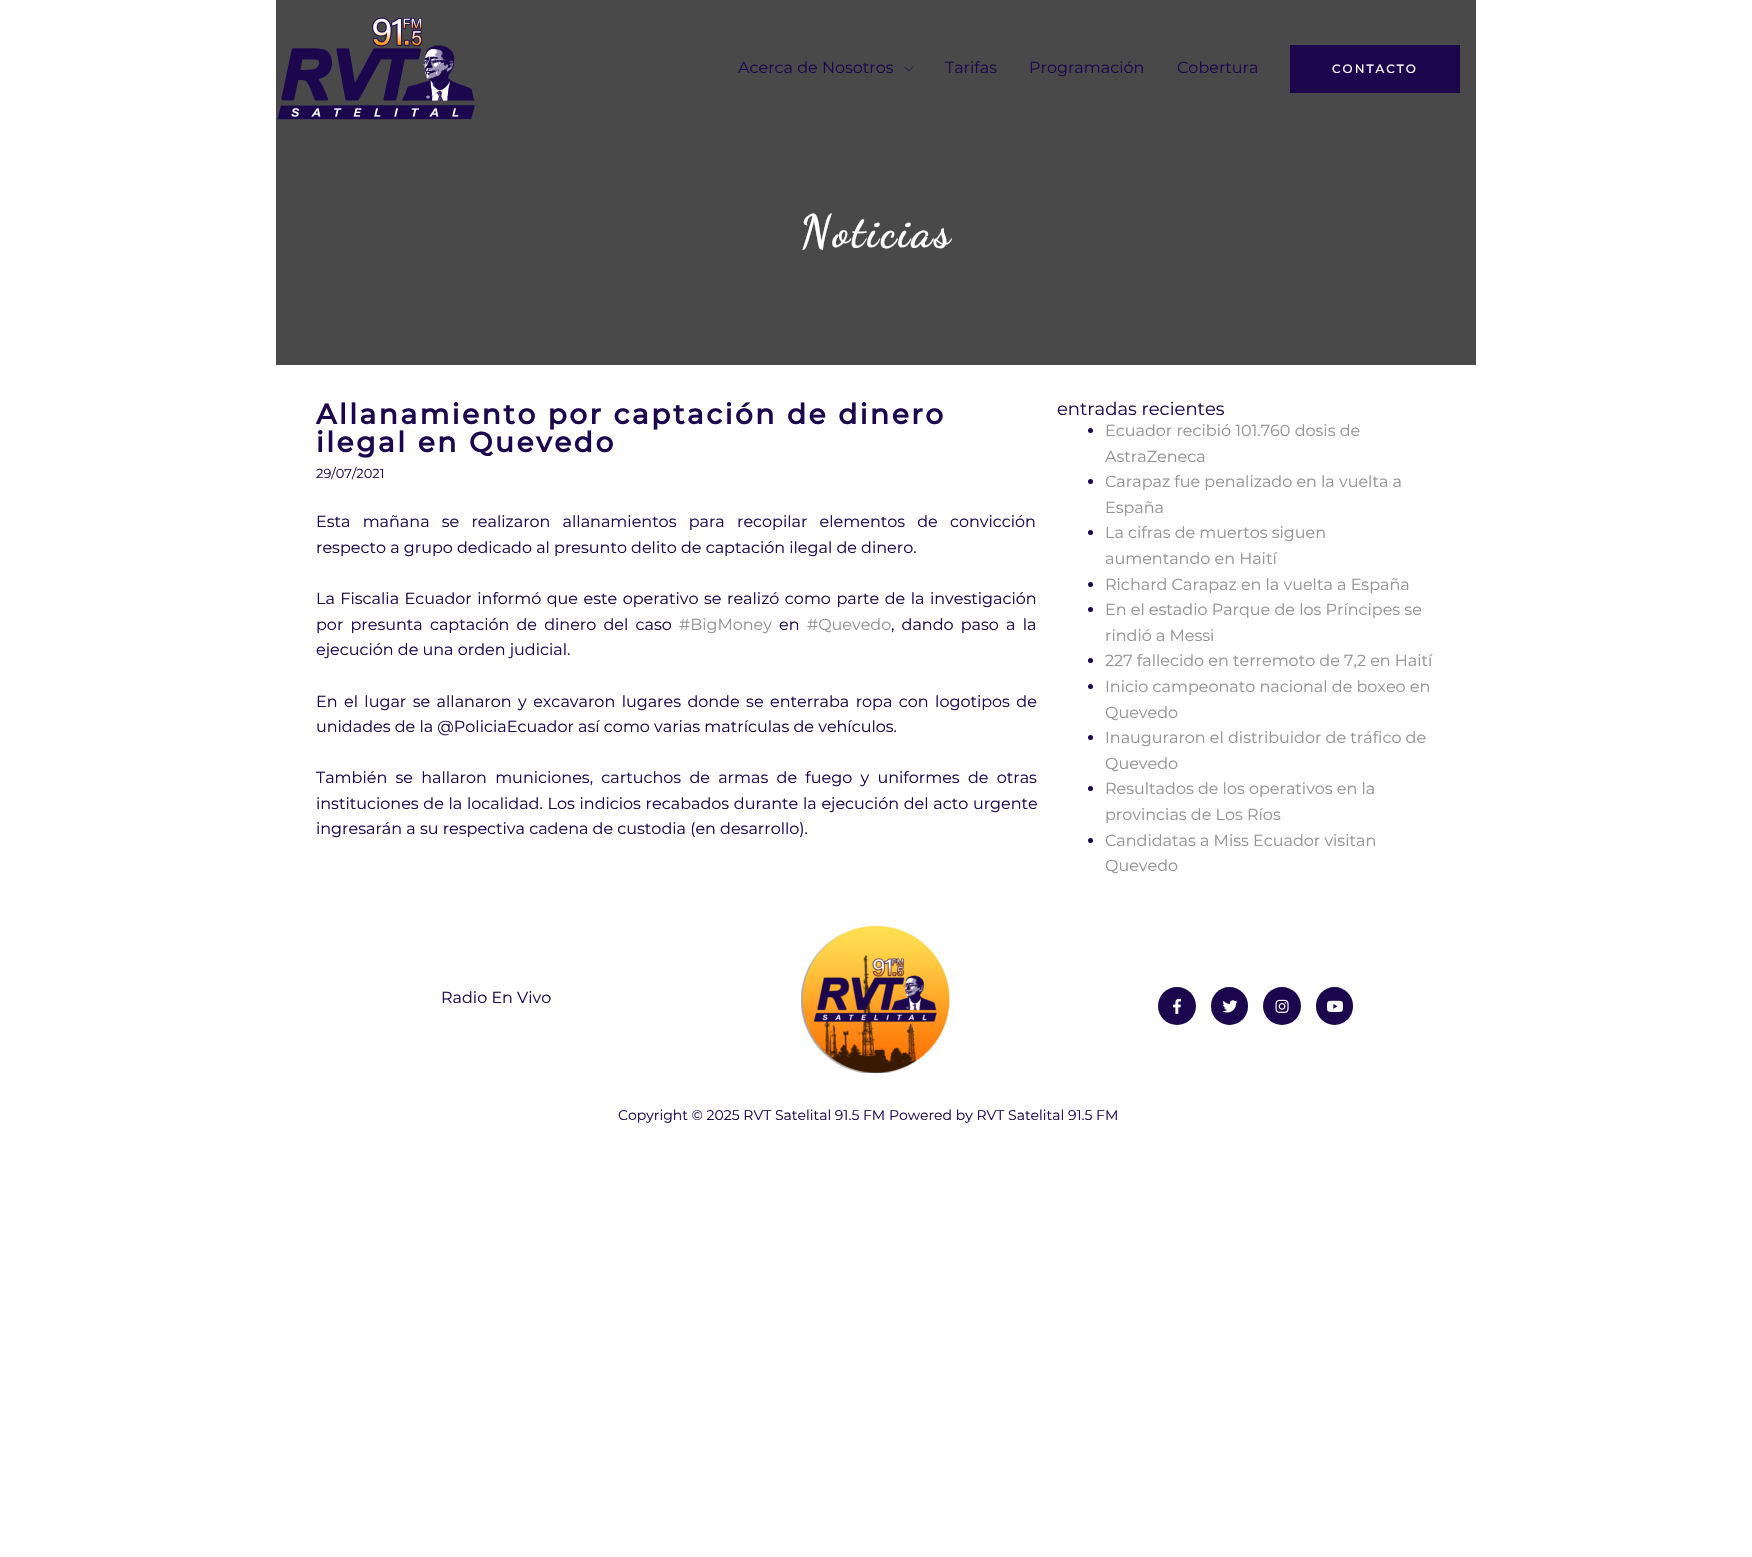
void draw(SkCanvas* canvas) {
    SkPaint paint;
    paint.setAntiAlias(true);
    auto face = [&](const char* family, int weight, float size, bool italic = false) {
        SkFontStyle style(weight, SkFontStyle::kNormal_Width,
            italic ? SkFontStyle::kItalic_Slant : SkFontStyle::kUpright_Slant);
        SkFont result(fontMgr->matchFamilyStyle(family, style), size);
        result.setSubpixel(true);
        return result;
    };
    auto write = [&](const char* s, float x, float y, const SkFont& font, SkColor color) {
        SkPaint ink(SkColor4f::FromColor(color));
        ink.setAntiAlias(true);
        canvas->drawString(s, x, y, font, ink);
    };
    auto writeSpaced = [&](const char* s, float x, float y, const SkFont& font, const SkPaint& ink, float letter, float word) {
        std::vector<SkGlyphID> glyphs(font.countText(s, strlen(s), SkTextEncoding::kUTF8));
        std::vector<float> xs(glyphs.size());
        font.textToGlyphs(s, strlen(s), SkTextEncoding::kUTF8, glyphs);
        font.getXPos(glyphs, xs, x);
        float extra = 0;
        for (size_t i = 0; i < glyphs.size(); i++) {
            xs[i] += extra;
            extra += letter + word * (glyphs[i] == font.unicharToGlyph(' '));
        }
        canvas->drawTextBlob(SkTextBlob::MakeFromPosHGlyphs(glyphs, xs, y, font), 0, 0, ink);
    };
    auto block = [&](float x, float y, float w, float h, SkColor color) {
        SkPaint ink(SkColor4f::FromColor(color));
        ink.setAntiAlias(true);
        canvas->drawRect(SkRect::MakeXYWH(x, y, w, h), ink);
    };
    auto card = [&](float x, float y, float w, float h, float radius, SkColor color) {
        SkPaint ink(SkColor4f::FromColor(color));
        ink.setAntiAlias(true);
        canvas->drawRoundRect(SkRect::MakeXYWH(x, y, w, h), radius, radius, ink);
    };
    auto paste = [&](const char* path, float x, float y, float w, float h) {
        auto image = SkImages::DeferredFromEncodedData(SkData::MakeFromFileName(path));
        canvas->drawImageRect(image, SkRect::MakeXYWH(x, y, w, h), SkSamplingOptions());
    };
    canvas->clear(SK_ColorWHITE);
    block(276, 0, 1200, 365, SkColorSetRGB(73, 73, 73));
    paste("pic1.png", 277, 17, 198, 103);
    auto kFont1 = face("Montserrat", 400, 16);
    write("Acerca de Nosotros", 738, 73, kFont1, SkColorSetRGB(28, 6, 78));
    paste("pic2.png", 904, 66, 9, 6);
    write("Tarifas", 945, 73, kFont1, SkColorSetRGB(28, 6, 78));
    write("Programación", 1029, 73, kFont1, SkColorSetRGB(28, 6, 78));
    write("Cobertura", 1177, 73, kFont1, SkColorSetRGB(28, 6, 78));
    block(1290, 45, 170, 48, SkColorSetRGB(28, 6, 78));
    auto kFont2 = face("Montserrat", 500, 12);
    paint.setColor(SK_ColorWHITE);
    writeSpaced("CONTACTO", 1332, 73, kFont2, paint, 2, 0);
    auto kFont3 = face("Dancing Script", 700, 45);
    writeSpaced("Noticias", 800, 246, kFont3, paint, 2.5f, 0);
    auto kFont4 = face("Montserrat", 700, 28);
    paint.setColor(SkColorSetRGB(28, 6, 78));
    writeSpaced("Allanamiento por captación de dinero", 316, 424, kFont4, paint, 2.5f, 0);
    writeSpaced("ilegal en Quevedo", 316, 452, kFont4, paint, 2.5f, 0);
    auto kFont5 = face("Montserrat", 400, 13);
    write("29/07/2021", 316, 478, kFont5, SkColorSetRGB(28, 6, 78));
    writeSpaced("Esta mañana se realizaron allanamientos para recopilar elementos de convicción", 316, 527, kFont1, paint, 0, 8);
    write("respecto a grupo dedicado al presunto delito de captación ilegal de dinero.", 316, 553, kFont1, SkColorSetRGB(28, 6, 78));
    writeSpaced("La Fiscalia Ecuador informó que este operativo se realizó como parte de la investigación", 316, 604, kFont1, paint, 0, 1.3f);
    writeSpaced("por presunta captación de dinero del caso", 316, 630, kFont1, paint, 0, 3);
    write("#BigMoney", 679, 630, kFont1, SkColorSetRGB(147, 147, 147));
    write("en", 779, 630, kFont1, SkColorSetRGB(28, 6, 78));
    write("#Quevedo", 807, 630, kFont1, SkColorSetRGB(147, 147, 147));
    writeSpaced(", dando paso a la", 891, 630, kFont1, paint, 0, 3);
    write("ejecución de una orden judicial.", 316, 655, kFont1, SkColorSetRGB(28, 6, 78));
    writeSpaced("En el lugar se allanaron y excavaron lugares donde se enterraba ropa con logotipos de", 316, 707, kFont1, paint, 0, 2.25f);
    write("unidades de la @PoliciaEcuador así como varias matrículas de vehículos.", 316, 732, kFont1, SkColorSetRGB(28, 6, 78));
    writeSpaced("También se hallaron municiones, cartuchos de armas de fuego y uniformes de otras", 316, 783, kFont1, paint, 0, 4.1f);
    writeSpaced("instituciones de la localidad. Los indicios recabados durante la ejecución del acto urgente", 316, 809, kFont1, paint, 0, 0.5f);
    write("ingresarán a su respectiva cadena de custodia (en desarrollo).", 316, 834, kFont1, SkColorSetRGB(28, 6, 78));
    auto kFont6 = face("Montserrat", 400, 18);
    write("entradas recientes", 1057, 415, kFont6, SkColorSetRGB(28, 6, 78));
    canvas->drawCircle(1090.5f, 430.5f, 2.5f, paint);
    write("Ecuador recibió 101.760 dosis de", 1105, 436, kFont1, SkColorSetRGB(147, 147, 147));
    write("AstraZeneca", 1105, 462, kFont1, SkColorSetRGB(147, 147, 147));
    canvas->drawCircle(1090.5f, 481.5f, 2.5f, paint);
    write("Carapaz fue penalizado en la vuelta a", 1105, 487, kFont1, SkColorSetRGB(147, 147, 147));
    write("España", 1105, 513, kFont1, SkColorSetRGB(147, 147, 147));
    canvas->drawCircle(1090.5f, 532.5f, 2.5f, paint);
    write("La cifras de muertos siguen", 1105, 538, kFont1, SkColorSetRGB(147, 147, 147));
    write("aumentando en Haití", 1105, 564, kFont1, SkColorSetRGB(147, 147, 147));
    canvas->drawCircle(1090.5f, 584.5f, 2.5f, paint);
    write("Richard Carapaz en la vuelta a España", 1105, 590, kFont1, SkColorSetRGB(147, 147, 147));
    canvas->drawCircle(1090.5f, 609.5f, 2.5f, paint);
    write("En el estadio Parque de los Príncipes se", 1105, 615, kFont1, SkColorSetRGB(147, 147, 147));
    write("rindió a Messi", 1105, 641, kFont1, SkColorSetRGB(147, 147, 147));
    canvas->drawCircle(1090.5f, 660.5f, 2.5f, paint);
    write("227 fallecido en terremoto de 7,2 en Haití", 1105, 666, kFont1, SkColorSetRGB(147, 147, 147));
    canvas->drawCircle(1090.5f, 686.5f, 2.5f, paint);
    write("Inicio campeonato nacional de boxeo en", 1105, 692, kFont1, SkColorSetRGB(147, 147, 147));
    write("Quevedo", 1105, 718, kFont1, SkColorSetRGB(147, 147, 147));
    canvas->drawCircle(1090.5f, 737.5f, 2.5f, paint);
    write("Inauguraron el distribuidor de tráfico de", 1105, 743, kFont1, SkColorSetRGB(147, 147, 147));
    write("Quevedo", 1105, 769, kFont1, SkColorSetRGB(147, 147, 147));
    canvas->drawCircle(1090.5f, 788.5f, 2.5f, paint);
    write("Resultados de los operativos en la", 1105, 794, kFont1, SkColorSetRGB(147, 147, 147));
    write("provincias de Los Ríos", 1105, 820, kFont1, SkColorSetRGB(147, 147, 147));
    canvas->drawCircle(1090.5f, 840.5f, 2.5f, paint);
    write("Candidatas a Miss Ecuador visitan", 1105, 846, kFont1, SkColorSetRGB(147, 147, 147));
    write("Quevedo", 1105, 871, kFont1, SkColorSetRGB(147, 147, 147));
    write("Radio En Vivo", 441, 1003, kFont1, SkColorSetRGB(28, 6, 78));
    paste("pic3.png", 801, 925, 149, 148);
    canvas->drawCircle(1177, 1006, 19, paint);
    paste("pic4.png", 1173, 998, 8, 16);
    card(1211, 987, 37, 38, 18.5f, SkColorSetRGB(28, 6, 78));
    paste("pic5.png", 1222, 1000, 16, 13);
    canvas->drawCircle(1282, 1006, 19, paint);
    paste("pic6.png", 1275, 999, 14, 14);
    card(1316, 987, 37, 38, 18.5f, SkColorSetRGB(28, 6, 78));
    paste("pic7.png", 1327, 1000, 16, 12);
    auto kFont7 = face("Montserrat", 400, 14);
    write("Copyright © 2025 RVT Satelital 91.5 FM Powered by RVT Satelital 91.5 FM", 618, 1120, kFont7, SkColorSetRGB(28, 6, 78));
}
